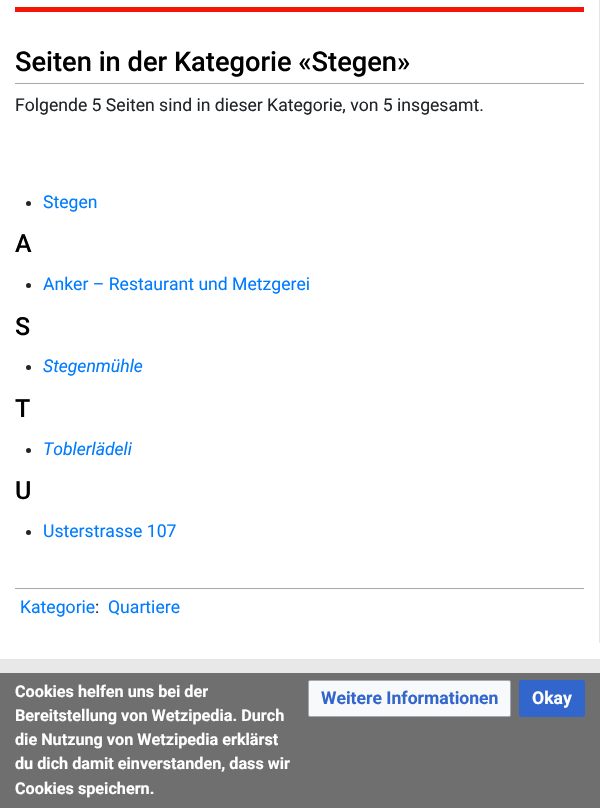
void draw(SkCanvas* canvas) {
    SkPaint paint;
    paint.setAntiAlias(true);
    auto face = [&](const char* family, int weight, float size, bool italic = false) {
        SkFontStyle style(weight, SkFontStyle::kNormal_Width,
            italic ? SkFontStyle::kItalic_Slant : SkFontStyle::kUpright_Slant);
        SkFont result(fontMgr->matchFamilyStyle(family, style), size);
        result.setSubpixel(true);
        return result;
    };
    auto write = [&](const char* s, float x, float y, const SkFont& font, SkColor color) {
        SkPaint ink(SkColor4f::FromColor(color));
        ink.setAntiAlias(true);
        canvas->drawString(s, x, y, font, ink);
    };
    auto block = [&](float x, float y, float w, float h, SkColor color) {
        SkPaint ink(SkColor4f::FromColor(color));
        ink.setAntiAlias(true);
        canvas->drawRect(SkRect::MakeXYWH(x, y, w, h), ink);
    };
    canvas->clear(SK_ColorWHITE);
    block(599, 0, 1, 643, SkColorSetRGB(229, 229, 229));
    block(15, 7, 569, 5, SkColorSetRGB(243, 21, 5));
    block(15, 83, 569, 1, SkColorSetRGB(162, 169, 177));
    auto kFont1 = face("Roboto", 500, 27.25f);
    write("Seiten in der Kategorie «Stegen»", 15, 71, kFont1, SK_ColorBLACK);
    auto kFont2 = face("Roboto", 400, 17.6f);
    write("Folgende 5 Seiten sind in dieser Kategorie, von 5 insgesamt.", 15, 111, kFont2, SkColorSetRGB(33, 37, 41));
    paint.setColor(SkColorSetRGB(33, 37, 41));
    canvas->drawCircle(28.5f, 203.5f, 2.5f, paint);
    write("Stegen", 43, 208, kFont2, SkColorSetRGB(0, 123, 255));
    auto kFont3 = face("Roboto", 500, 25);
    write("A", 15, 252, kFont3, SK_ColorBLACK);
    canvas->drawCircle(28.5f, 285.5f, 2.5f, paint);
    write("Anker – Restaurant und Metzgerei", 43, 290, kFont2, SkColorSetRGB(0, 123, 255));
    write("S", 15, 335, kFont3, SK_ColorBLACK);
    canvas->drawCircle(28.5f, 367.5f, 2.5f, paint);
    auto kFont4 = face("Roboto", 400, 17.6f, true);
    write("Stegenmühle", 43, 372, kFont4, SkColorSetRGB(0, 123, 255));
    write("T", 15, 417, kFont3, SK_ColorBLACK);
    canvas->drawCircle(28.5f, 450.5f, 2.5f, paint);
    write("Toblerlädeli", 43, 455, kFont4, SkColorSetRGB(0, 123, 255));
    write("U", 15, 499, kFont3, SK_ColorBLACK);
    canvas->drawCircle(28.5f, 532.5f, 2.5f, paint);
    write("Usterstrasse 107", 43, 537, kFont2, SkColorSetRGB(0, 123, 255));
    block(15, 588, 569, 1, SkColorSetRGB(162, 169, 177));
    write("Kategorie", 20, 613, kFont2, SkColorSetRGB(0, 123, 255));
    write(":", 95, 613, kFont2, SkColorSetRGB(33, 37, 41));
    write("Quartiere", 108, 613, kFont2, SkColorSetRGB(0, 123, 255));
    block(0, 673, 600, 135, SkColorSetRGB(111, 111, 111));
    auto kFont5 = face("Roboto", 700, 16.2f);
    write("Cookies helfen uns bei der", 15, 697, kFont5, SK_ColorWHITE);
    write("Bereitstellung von Wetzipedia. Durch", 15, 721, kFont5, SK_ColorWHITE);
    write("die Nutzung von Wetzipedia erklärst", 15, 745, kFont5, SK_ColorWHITE);
    write("du dich damit einverstanden, dass wir", 15, 769, kFont5, SK_ColorWHITE);
    write("Cookies speichern.", 15, 794, kFont5, SK_ColorWHITE);
    paint.setColor(SkColorSetRGB(248, 249, 250));
    canvas->drawRoundRect(SkRect::MakeXYWH(308.5f, 680.5f, 202, 36), 1.5f, 1.5f, paint);
    paint.setStyle(SkPaint::kStroke_Style);
    paint.setStrokeWidth(1);
    paint.setColor(SkColorSetRGB(162, 169, 177));
    canvas->drawRoundRect(SkRect::MakeXYWH(308.5f, 680.5f, 202, 36), 1.5f, 1.5f, paint);
    auto kFont6 = face("Roboto", 700, 17.6f);
    write("Weitere Informationen", 321, 704, kFont6, SkColorSetRGB(51, 102, 204));
    paint.setStyle(SkPaint::kFill_Style);
    paint.setColor(SkColorSetRGB(51, 102, 204));
    canvas->drawRoundRect(SkRect::MakeXYWH(519.5f, 680.5f, 65, 36), 1.5f, 1.5f, paint);
    paint.setStyle(SkPaint::kStroke_Style);
    canvas->drawRoundRect(SkRect::MakeXYWH(519.5f, 680.5f, 65, 36), 1.5f, 1.5f, paint);
    write("Okay", 532, 704, kFont6, SK_ColorWHITE);
    block(0, 660, 600, 13, SkColorSetRGB(232, 232, 232));
    block(0, 659, 600, 1, SkColorSetRGB(229, 229, 229));
}
